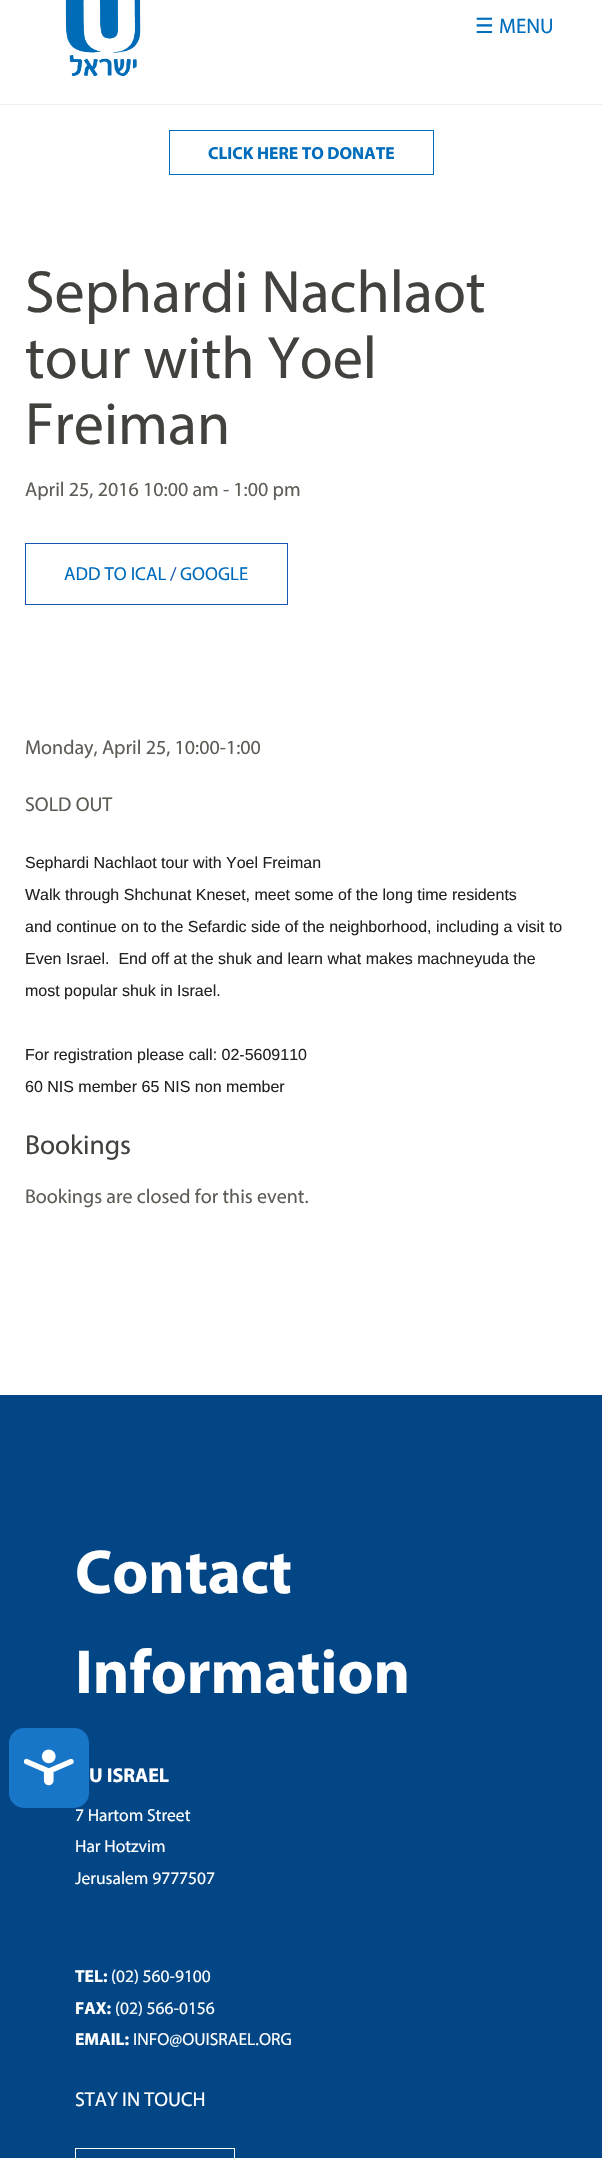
void draw(SkCanvas* canvas) {
    SkPaint paint;
    paint.setAntiAlias(true);
    auto face = [&](const char* family, int weight, float size, bool italic = false) {
        SkFontStyle style(weight, SkFontStyle::kNormal_Width,
            italic ? SkFontStyle::kItalic_Slant : SkFontStyle::kUpright_Slant);
        SkFont result(fontMgr->matchFamilyStyle(family, style), size);
        result.setSubpixel(true);
        return result;
    };
    auto write = [&](const char* s, float x, float y, const SkFont& font, SkColor color) {
        SkPaint ink(SkColor4f::FromColor(color));
        ink.setAntiAlias(true);
        canvas->drawString(s, x, y, font, ink);
    };
    auto block = [&](float x, float y, float w, float h, SkColor color) {
        SkPaint ink(SkColor4f::FromColor(color));
        ink.setAntiAlias(true);
        canvas->drawRect(SkRect::MakeXYWH(x, y, w, h), ink);
    };
    auto card = [&](float x, float y, float w, float h, float radius, SkColor color) {
        SkPaint ink(SkColor4f::FromColor(color));
        ink.setAntiAlias(true);
        canvas->drawRoundRect(SkRect::MakeXYWH(x, y, w, h), radius, radius, ink);
    };
    auto paste = [&](const char* path, float x, float y, float w, float h) {
        auto image = SkImages::DeferredFromEncodedData(SkData::MakeFromFileName(path));
        canvas->drawImageRect(image, SkRect::MakeXYWH(x, y, w, h), SkSamplingOptions());
    };
    canvas->clear(SK_ColorWHITE);
    paste("pic1.png", 65, 0, 76, 77);
    auto kFont1 = face("DejaVu Sans", 400, 21);
    write("☰", 475, 33, kFont1, SkColorSetRGB(0, 108, 188));
    auto kFont2 = face("Myriad", 400, 21);
    write("MENU", 499, 33, kFont2, SkColorSetRGB(0, 108, 188));
    block(0, 104, 602, 1, SkColorSetRGB(239, 239, 239));
    paint.setStyle(SkPaint::kStroke_Style);
    paint.setStrokeWidth(1);
    paint.setColor(SkColorSetRGB(0, 108, 188));
    canvas->drawRect(SkRect::MakeXYWH(169.5f, 130.5f, 264, 44), paint);
    auto kFont3 = face("Myriad", 700, 17.5f);
    write("CLICK HERE TO DONATE", 208, 159, kFont3, SkColorSetRGB(0, 108, 188));
    auto kFont4 = face("Myriad", 400, 60);
    write("Sephardi Nachlaot", 25, 312, kFont4, SkColorSetRGB(67, 65, 61));
    write("tour with Yoel", 25, 378, kFont4, SkColorSetRGB(67, 65, 61));
    write("Freiman", 25, 444, kFont4, SkColorSetRGB(67, 65, 61));
    auto kFont5 = face("Myriad", 400, 20);
    write("April 25, 2016 10:00 am - 1:00 pm", 25, 496, kFont5, SkColorSetRGB(95, 92, 86));
    paint.setColor(SkColorSetRGB(22, 85, 179));
    canvas->drawRect(SkRect::MakeXYWH(25.5f, 543.5f, 262, 61), paint);
    auto kFont6 = face("Myriad", 400, 18.75f);
    write("ADD TO ICAL", 64, 580, kFont6, SkColorSetRGB(0, 108, 188));
    write("/", 170, 580, kFont6, SkColorSetRGB(22, 85, 179));
    write("GOOGLE", 180, 580, kFont6, SkColorSetRGB(0, 108, 188));
    write("Monday, April 25, 10:00-1:00", 25, 754, kFont5, SkColorSetRGB(95, 92, 86));
    write("SOLD OUT", 25, 811, kFont5, SkColorSetRGB(95, 92, 86));
    auto kFont7 = face("Liberation Sans", 400, 16);
    write("Sephardi Nachlaot tour with Yoel Freiman", 25, 868, kFont7, SkColorSetRGB(34, 34, 34));
    write("Walk through Shchunat Kneset, meet some of the long time residents", 25, 900, kFont7, SkColorSetRGB(34, 34, 34));
    write("and continue on to the Sefardic side of the neighborhood, including a visit to", 25, 932, kFont7, SkColorSetRGB(34, 34, 34));
    write("Even Israel.  End off at the shuk and learn what makes machneyuda the", 25, 964, kFont7, SkColorSetRGB(34, 34, 34));
    write("most popular shuk in Israel.", 25, 996, kFont7, SkColorSetRGB(34, 34, 34));
    write("For registration please call: 02-5609110", 25, 1060, kFont7, SkColorSetRGB(34, 34, 34));
    write("60 NIS member 65 NIS non member", 25, 1092, kFont7, SkColorSetRGB(34, 34, 34));
    auto kFont8 = face("Myriad", 400, 27.5f);
    write("Bookings", 25, 1154, kFont8, SkColorSetRGB(67, 65, 61));
    write("Bookings are closed for this event.", 25, 1203, kFont5, SkColorSetRGB(95, 92, 86));
    block(0, 1395, 602, 763, SkColorSetRGB(2, 70, 134));
    card(9, 1728, 80, 80, 15, SkColorSetRGB(24, 118, 201));
    paste("pic2.png", 24, 1749, 50, 37);
    auto kFont9 = face("Myriad", 700, 62.5f);
    write("Contact", 75, 1593, kFont9, SK_ColorWHITE);
    write("Information", 75, 1693, kFont9, SK_ColorWHITE);
    auto kFont10 = face("Myriad", 700, 20);
    write("U ISRAEL", 89, 1782, kFont10, SK_ColorWHITE);
    auto kFont11 = face("Myriad", 400, 17.5f);
    write("7 Hartom Street", 75, 1821, kFont11, SK_ColorWHITE);
    write("Har Hotzvim", 75, 1852, kFont11, SK_ColorWHITE);
    write("Jerusalem 9777507", 75, 1884, kFont11, SK_ColorWHITE);
    write("TEL:", 75, 1982, kFont3, SK_ColorWHITE);
    write("(02) 560-9100", 111, 1982, kFont11, SK_ColorWHITE);
    write("FAX:", 75, 2014, kFont3, SK_ColorWHITE);
    write("(02) 566-0156", 115, 2014, kFont11, SK_ColorWHITE);
    write("EMAIL:", 75, 2045, kFont3, SK_ColorWHITE);
    write("INFO@OUISRAEL.ORG", 133, 2045, kFont11, SK_ColorWHITE);
    write("STAY IN TOUCH", 75, 2106, kFont5, SK_ColorWHITE);
    paint.setColor(SK_ColorWHITE);
    canvas->drawRect(SkRect::MakeXYWH(75.5f, 2148.5f, 159, 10), paint);
}
